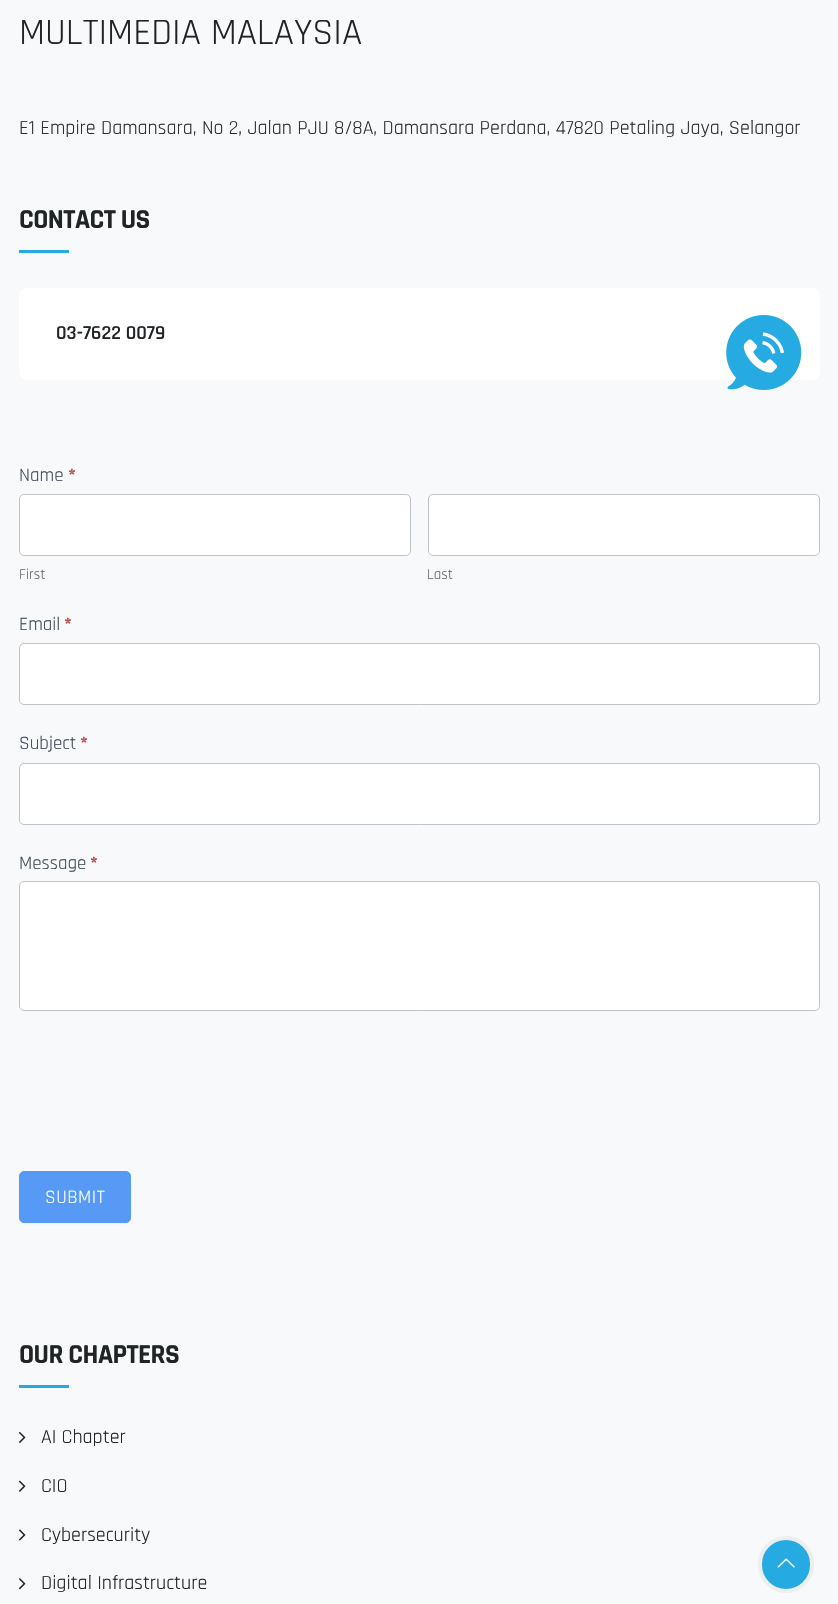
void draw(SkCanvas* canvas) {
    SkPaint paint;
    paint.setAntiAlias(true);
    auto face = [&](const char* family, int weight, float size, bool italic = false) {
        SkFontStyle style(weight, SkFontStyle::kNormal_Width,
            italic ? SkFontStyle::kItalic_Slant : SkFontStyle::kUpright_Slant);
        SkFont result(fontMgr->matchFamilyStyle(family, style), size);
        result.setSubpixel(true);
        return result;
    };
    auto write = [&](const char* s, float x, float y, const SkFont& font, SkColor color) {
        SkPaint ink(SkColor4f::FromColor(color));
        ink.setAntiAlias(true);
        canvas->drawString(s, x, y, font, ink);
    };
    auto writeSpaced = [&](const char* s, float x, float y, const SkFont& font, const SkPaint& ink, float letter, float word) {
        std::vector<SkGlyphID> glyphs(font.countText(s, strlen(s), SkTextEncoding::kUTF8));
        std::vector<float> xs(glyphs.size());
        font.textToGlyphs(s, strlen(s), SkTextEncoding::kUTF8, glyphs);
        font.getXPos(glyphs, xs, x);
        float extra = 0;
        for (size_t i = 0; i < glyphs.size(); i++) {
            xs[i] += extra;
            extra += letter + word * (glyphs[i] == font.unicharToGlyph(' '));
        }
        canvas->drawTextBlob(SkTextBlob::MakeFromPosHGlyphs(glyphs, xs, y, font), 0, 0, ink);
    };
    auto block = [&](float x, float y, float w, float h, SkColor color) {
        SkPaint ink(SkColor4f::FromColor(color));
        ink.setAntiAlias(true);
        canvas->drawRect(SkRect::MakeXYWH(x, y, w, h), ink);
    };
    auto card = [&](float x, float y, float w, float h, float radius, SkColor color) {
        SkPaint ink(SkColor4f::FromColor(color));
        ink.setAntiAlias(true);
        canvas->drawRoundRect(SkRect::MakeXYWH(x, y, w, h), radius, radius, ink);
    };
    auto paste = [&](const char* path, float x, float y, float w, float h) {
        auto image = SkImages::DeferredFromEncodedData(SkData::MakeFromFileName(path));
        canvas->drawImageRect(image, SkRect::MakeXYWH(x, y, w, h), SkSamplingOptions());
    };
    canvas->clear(SkColorSetRGB(247, 249, 250));
    auto kFont1 = face("Rajdhani", 400, 37.5f);
    write("MULTIMEDIA MALAYSIA", 19, 44, kFont1, SkColorSetRGB(32, 36, 38));
    auto kFont2 = face("Rajdhani", 400, 20);
    write("E1 Empire Damansara, No 2, Jalan PJU 8/8A, Damansara Perdana, 47820 Petaling Jaya, Selangor", 19, 134, kFont2, SkColorSetRGB(43, 47, 49));
    auto kFont3 = face("Rajdhani", 700, 27.5f);
    paint.setColor(SkColorSetRGB(32, 36, 38));
    writeSpaced("CONTACT US", 19, 228, kFont3, paint, -0.6f, 0);
    block(19, 250, 50, 3, SkColorSetRGB(37, 170, 225));
    card(19, 288, 801, 92, 8, SK_ColorWHITE);
    auto kFont4 = face("Rajdhani", 600, 20);
    write("03-7622 0079", 56, 339, kFont4, SkColorSetRGB(32, 36, 38));
    paste("pic1.png", 726, 315, 76, 75);
    auto kFont5 = face("Rajdhani", 400, 19);
    write("Name", 19, 481, kFont5, SkColorSetRGB(63, 75, 91));
    auto kFont6 = face("Rajdhani", 700, 19);
    write("*", 68, 481, kFont6, SkColorSetRGB(185, 74, 72));
    paint.setColor(SK_ColorWHITE);
    canvas->drawRoundRect(SkRect::MakeXYWH(19.5f, 494.5f, 391, 61), 4.5f, 4.5f, paint);
    paint.setStyle(SkPaint::kStroke_Style);
    paint.setStrokeWidth(1);
    paint.setColor(SkColorSetRGB(191, 195, 200));
    canvas->drawRoundRect(SkRect::MakeXYWH(19.5f, 494.5f, 391, 61), 4.5f, 4.5f, paint);
    auto kFont7 = face("Rajdhani", 400, 15);
    write("First", 19, 579, kFont7, SkColorSetRGB(102, 102, 102));
    paint.setStyle(SkPaint::kFill_Style);
    paint.setColor(SK_ColorWHITE);
    canvas->drawRoundRect(SkRect::MakeXYWH(428.5f, 494.5f, 391, 61), 4.5f, 4.5f, paint);
    paint.setStyle(SkPaint::kStroke_Style);
    paint.setColor(SkColorSetRGB(191, 195, 200));
    canvas->drawRoundRect(SkRect::MakeXYWH(428.5f, 494.5f, 391, 61), 4.5f, 4.5f, paint);
    write("Last", 427, 579, kFont7, SkColorSetRGB(102, 102, 102));
    write("Email", 19, 630, kFont5, SkColorSetRGB(63, 75, 91));
    write("*", 64, 630, kFont6, SkColorSetRGB(185, 74, 72));
    paint.setStyle(SkPaint::kFill_Style);
    paint.setColor(SK_ColorWHITE);
    canvas->drawRoundRect(SkRect::MakeXYWH(19.5f, 643.5f, 800, 61), 4.5f, 4.5f, paint);
    paint.setStyle(SkPaint::kStroke_Style);
    paint.setColor(SkColorSetRGB(191, 195, 200));
    canvas->drawRoundRect(SkRect::MakeXYWH(19.5f, 643.5f, 800, 61), 4.5f, 4.5f, paint);
    write("Subject", 19, 749, kFont5, SkColorSetRGB(63, 75, 91));
    write("*", 80, 749, kFont6, SkColorSetRGB(185, 74, 72));
    paint.setStyle(SkPaint::kFill_Style);
    paint.setColor(SK_ColorWHITE);
    canvas->drawRoundRect(SkRect::MakeXYWH(19.5f, 763.5f, 800, 61), 4.5f, 4.5f, paint);
    paint.setStyle(SkPaint::kStroke_Style);
    paint.setColor(SkColorSetRGB(191, 195, 200));
    canvas->drawRoundRect(SkRect::MakeXYWH(19.5f, 763.5f, 800, 61), 4.5f, 4.5f, paint);
    write("Message", 19, 869, kFont5, SkColorSetRGB(63, 75, 91));
    write("*", 90, 869, kFont6, SkColorSetRGB(185, 74, 72));
    paint.setStyle(SkPaint::kFill_Style);
    paint.setColor(SK_ColorWHITE);
    canvas->drawRoundRect(SkRect::MakeXYWH(19.5f, 881.5f, 800, 129), 4.5f, 4.5f, paint);
    paint.setStyle(SkPaint::kStroke_Style);
    paint.setColor(SkColorSetRGB(191, 195, 200));
    canvas->drawRoundRect(SkRect::MakeXYWH(19.5f, 881.5f, 800, 129), 4.5f, 4.5f, paint);
    paint.setStyle(SkPaint::kFill_Style);
    paint.setColor(SkColorSetRGB(238, 238, 238));
    paint.setMaskFilter(SkMaskFilter::MakeBlur(kNormal_SkBlurStyle, 0.5f));
    canvas->drawRoundRect(SkRect::MakeXYWH(19, 1173, 112, 51), 5, 5, paint);
    paint.setMaskFilter(nullptr);
    paint.setColor(SkColorSetRGB(87, 154, 246));
    canvas->drawRoundRect(SkRect::MakeXYWH(19.5f, 1171.5f, 111, 51), 4.5f, 4.5f, paint);
    paint.setStyle(SkPaint::kStroke_Style);
    canvas->drawRoundRect(SkRect::MakeXYWH(19.5f, 1171.5f, 111, 51), 4.5f, 4.5f, paint);
    paint.setStyle(SkPaint::kFill_Style);
    paint.setColor(SK_ColorWHITE);
    writeSpaced("SUBMIT", 45, 1203, kFont5, paint, 0.5f, 0);
    paint.setColor(SkColorSetRGB(32, 36, 38));
    writeSpaced("OUR CHAPTERS", 19, 1363, kFont3, paint, -0.6f, 0);
    block(19, 1385, 50, 3, SkColorSetRGB(37, 170, 225));
    paste("pic2.png", 18, 1431, 8, 12);
    write("AI Chapter", 41, 1443, kFont2, SkColorSetRGB(32, 36, 38));
    paste("pic3.png", 18, 1480, 8, 12);
    write("CIO", 41, 1492, kFont2, SkColorSetRGB(32, 36, 38));
    paste("pic4.png", 18, 1529, 8, 12);
    write("Cybersecurity", 41, 1541, kFont2, SkColorSetRGB(32, 36, 38));
    paste("pic5.png", 18, 1578, 8, 12);
    write("Digital Infrastructure", 41, 1589, kFont2, SkColorSetRGB(32, 36, 38));
    paint.setColor(SkColorSetRGB(37, 170, 225));
    canvas->drawRoundRect(SkRect::MakeXYWH(760, 1538, 52, 53), 26, 26, paint);
    paint.setStyle(SkPaint::kStroke_Style);
    paint.setStrokeWidth(4);
    paint.setColor(SkColorSetRGB(238, 238, 238));
    canvas->drawRoundRect(SkRect::MakeXYWH(760, 1538, 52, 53), 26, 26, paint);
    paste("pic6.png", 777, 1558, 18, 10);
}
